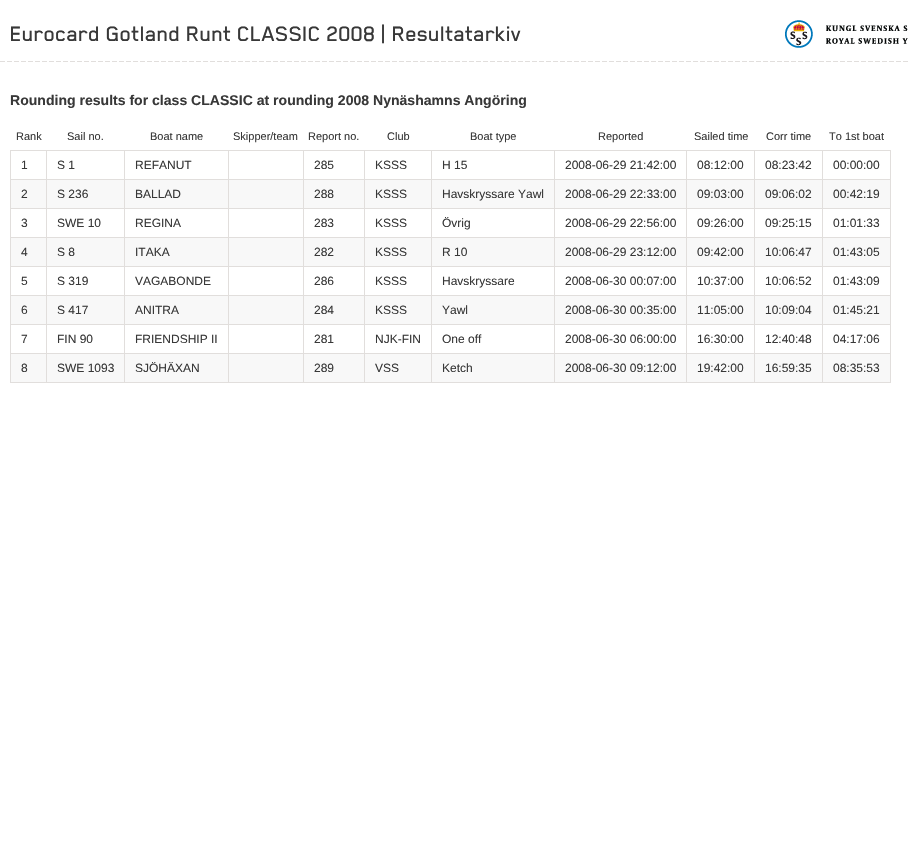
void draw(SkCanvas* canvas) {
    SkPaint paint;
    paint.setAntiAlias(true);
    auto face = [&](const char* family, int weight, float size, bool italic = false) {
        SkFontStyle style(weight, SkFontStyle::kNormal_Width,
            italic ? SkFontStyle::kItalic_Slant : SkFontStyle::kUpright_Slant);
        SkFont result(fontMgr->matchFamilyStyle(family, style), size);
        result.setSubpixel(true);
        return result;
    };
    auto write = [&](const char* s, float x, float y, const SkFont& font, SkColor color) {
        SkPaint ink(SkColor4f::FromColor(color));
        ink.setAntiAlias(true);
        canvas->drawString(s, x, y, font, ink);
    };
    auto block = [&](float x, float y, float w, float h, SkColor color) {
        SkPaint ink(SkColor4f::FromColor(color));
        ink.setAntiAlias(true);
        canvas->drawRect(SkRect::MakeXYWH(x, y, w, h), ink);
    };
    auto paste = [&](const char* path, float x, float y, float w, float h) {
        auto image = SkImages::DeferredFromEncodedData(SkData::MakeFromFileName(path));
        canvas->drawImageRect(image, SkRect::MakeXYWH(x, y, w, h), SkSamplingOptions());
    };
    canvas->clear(SK_ColorWHITE);
    paste("pic1.png", 0, 61, 908, 1);
    auto kFont1 = face("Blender", 500, 24);
    write("Eurocard Gotland Runt CLASSIC 2008 | Resultatarkiv", 10, 41, kFont1, SkColorSetRGB(56, 56, 56));
    paste("pic2.png", 785, 20, 123, 28);
    auto kFont2 = face("Liberation Sans", 700, 14.05f);
    write("Rounding results for class CLASSIC at rounding 2008 Nynäshamns Angöring", 10, 105, kFont2, SkColorSetRGB(56, 56, 56));
    auto kFont3 = face("Liberation Sans", 400, 11);
    write("Rank", 16, 140, kFont3, SkColorSetRGB(56, 56, 56));
    write("Sail no.", 67, 140, kFont3, SkColorSetRGB(56, 56, 56));
    write("Boat name", 150, 140, kFont3, SkColorSetRGB(56, 56, 56));
    write("Skipper/team", 233, 140, kFont3, SkColorSetRGB(56, 56, 56));
    write("Report no.", 308, 140, kFont3, SkColorSetRGB(56, 56, 56));
    write("Club", 387, 140, kFont3, SkColorSetRGB(56, 56, 56));
    write("Boat type", 470, 140, kFont3, SkColorSetRGB(56, 56, 56));
    write("Reported", 598, 140, kFont3, SkColorSetRGB(56, 56, 56));
    write("Sailed time", 694, 140, kFont3, SkColorSetRGB(56, 56, 56));
    write("Corr time", 766, 140, kFont3, SkColorSetRGB(56, 56, 56));
    write("To 1st boat", 829, 140, kFont3, SkColorSetRGB(56, 56, 56));
    block(822, 150, 69, 1, SkColorSetRGB(225, 222, 220));
    block(822, 179, 69, 1, SkColorSetRGB(225, 222, 220));
    block(822, 208, 69, 1, SkColorSetRGB(225, 222, 220));
    block(822, 237, 69, 1, SkColorSetRGB(225, 222, 220));
    block(822, 266, 69, 1, SkColorSetRGB(225, 222, 220));
    block(822, 295, 69, 1, SkColorSetRGB(225, 222, 220));
    block(822, 324, 69, 1, SkColorSetRGB(225, 222, 220));
    block(822, 353, 69, 1, SkColorSetRGB(225, 222, 220));
    block(890, 353, 1, 30, SkColorSetRGB(225, 222, 220));
    block(822, 382, 69, 1, SkColorSetRGB(225, 222, 220));
    block(822, 353, 1, 30, SkColorSetRGB(225, 222, 220));
    block(754, 353, 69, 1, SkColorSetRGB(225, 222, 220));
    block(822, 324, 1, 30, SkColorSetRGB(225, 222, 220));
    block(754, 324, 69, 1, SkColorSetRGB(225, 222, 220));
    block(822, 295, 1, 30, SkColorSetRGB(225, 222, 220));
    block(754, 295, 69, 1, SkColorSetRGB(225, 222, 220));
    block(822, 266, 1, 30, SkColorSetRGB(225, 222, 220));
    block(754, 266, 69, 1, SkColorSetRGB(225, 222, 220));
    block(822, 237, 1, 30, SkColorSetRGB(225, 222, 220));
    block(754, 237, 69, 1, SkColorSetRGB(225, 222, 220));
    block(822, 208, 1, 30, SkColorSetRGB(225, 222, 220));
    block(754, 208, 69, 1, SkColorSetRGB(225, 222, 220));
    block(822, 179, 1, 30, SkColorSetRGB(225, 222, 220));
    block(754, 179, 69, 1, SkColorSetRGB(225, 222, 220));
    block(822, 150, 1, 30, SkColorSetRGB(225, 222, 220));
    block(754, 150, 69, 1, SkColorSetRGB(225, 222, 220));
    block(754, 382, 69, 1, SkColorSetRGB(225, 222, 220));
    block(754, 353, 1, 30, SkColorSetRGB(225, 222, 220));
    block(686, 353, 69, 1, SkColorSetRGB(225, 222, 220));
    block(754, 324, 1, 30, SkColorSetRGB(225, 222, 220));
    block(686, 324, 69, 1, SkColorSetRGB(225, 222, 220));
    block(754, 295, 1, 30, SkColorSetRGB(225, 222, 220));
    block(686, 295, 69, 1, SkColorSetRGB(225, 222, 220));
    block(754, 266, 1, 30, SkColorSetRGB(225, 222, 220));
    block(686, 266, 69, 1, SkColorSetRGB(225, 222, 220));
    block(754, 237, 1, 30, SkColorSetRGB(225, 222, 220));
    block(686, 237, 69, 1, SkColorSetRGB(225, 222, 220));
    block(754, 208, 1, 30, SkColorSetRGB(225, 222, 220));
    block(686, 208, 69, 1, SkColorSetRGB(225, 222, 220));
    block(754, 179, 1, 30, SkColorSetRGB(225, 222, 220));
    block(686, 179, 69, 1, SkColorSetRGB(225, 222, 220));
    block(754, 150, 1, 30, SkColorSetRGB(225, 222, 220));
    block(686, 150, 69, 1, SkColorSetRGB(225, 222, 220));
    block(686, 382, 69, 1, SkColorSetRGB(225, 222, 220));
    block(686, 353, 1, 30, SkColorSetRGB(225, 222, 220));
    block(554, 353, 133, 1, SkColorSetRGB(225, 222, 220));
    block(686, 324, 1, 30, SkColorSetRGB(225, 222, 220));
    block(554, 324, 133, 1, SkColorSetRGB(225, 222, 220));
    block(686, 295, 1, 30, SkColorSetRGB(225, 222, 220));
    block(554, 295, 133, 1, SkColorSetRGB(225, 222, 220));
    block(686, 266, 1, 30, SkColorSetRGB(225, 222, 220));
    block(554, 266, 133, 1, SkColorSetRGB(225, 222, 220));
    block(686, 237, 1, 30, SkColorSetRGB(225, 222, 220));
    block(554, 237, 133, 1, SkColorSetRGB(225, 222, 220));
    block(686, 208, 1, 30, SkColorSetRGB(225, 222, 220));
    block(554, 208, 133, 1, SkColorSetRGB(225, 222, 220));
    block(686, 179, 1, 30, SkColorSetRGB(225, 222, 220));
    block(554, 179, 133, 1, SkColorSetRGB(225, 222, 220));
    block(686, 150, 1, 30, SkColorSetRGB(225, 222, 220));
    block(554, 150, 133, 1, SkColorSetRGB(225, 222, 220));
    block(554, 382, 133, 1, SkColorSetRGB(225, 222, 220));
    block(554, 353, 1, 30, SkColorSetRGB(225, 222, 220));
    block(431, 353, 124, 1, SkColorSetRGB(225, 222, 220));
    block(554, 324, 1, 30, SkColorSetRGB(225, 222, 220));
    block(431, 324, 124, 1, SkColorSetRGB(225, 222, 220));
    block(554, 295, 1, 30, SkColorSetRGB(225, 222, 220));
    block(431, 295, 124, 1, SkColorSetRGB(225, 222, 220));
    block(554, 266, 1, 30, SkColorSetRGB(225, 222, 220));
    block(431, 266, 124, 1, SkColorSetRGB(225, 222, 220));
    block(554, 237, 1, 30, SkColorSetRGB(225, 222, 220));
    block(431, 237, 124, 1, SkColorSetRGB(225, 222, 220));
    block(554, 208, 1, 30, SkColorSetRGB(225, 222, 220));
    block(431, 208, 124, 1, SkColorSetRGB(225, 222, 220));
    block(554, 179, 1, 30, SkColorSetRGB(225, 222, 220));
    block(431, 179, 124, 1, SkColorSetRGB(225, 222, 220));
    block(554, 150, 1, 30, SkColorSetRGB(225, 222, 220));
    block(431, 150, 124, 1, SkColorSetRGB(225, 222, 220));
    block(431, 382, 124, 1, SkColorSetRGB(225, 222, 220));
    block(431, 353, 1, 30, SkColorSetRGB(225, 222, 220));
    block(364, 353, 68, 1, SkColorSetRGB(225, 222, 220));
    block(431, 324, 1, 30, SkColorSetRGB(225, 222, 220));
    block(364, 324, 68, 1, SkColorSetRGB(225, 222, 220));
    block(431, 295, 1, 30, SkColorSetRGB(225, 222, 220));
    block(364, 295, 68, 1, SkColorSetRGB(225, 222, 220));
    block(431, 266, 1, 30, SkColorSetRGB(225, 222, 220));
    block(364, 266, 68, 1, SkColorSetRGB(225, 222, 220));
    block(431, 237, 1, 30, SkColorSetRGB(225, 222, 220));
    block(364, 237, 68, 1, SkColorSetRGB(225, 222, 220));
    block(431, 208, 1, 30, SkColorSetRGB(225, 222, 220));
    block(364, 208, 68, 1, SkColorSetRGB(225, 222, 220));
    block(431, 179, 1, 30, SkColorSetRGB(225, 222, 220));
    block(364, 179, 68, 1, SkColorSetRGB(225, 222, 220));
    block(431, 150, 1, 30, SkColorSetRGB(225, 222, 220));
    block(364, 150, 68, 1, SkColorSetRGB(225, 222, 220));
    block(364, 382, 68, 1, SkColorSetRGB(225, 222, 220));
    block(364, 353, 1, 30, SkColorSetRGB(225, 222, 220));
    block(303, 353, 62, 1, SkColorSetRGB(225, 222, 220));
    block(364, 324, 1, 30, SkColorSetRGB(225, 222, 220));
    block(303, 324, 62, 1, SkColorSetRGB(225, 222, 220));
    block(364, 295, 1, 30, SkColorSetRGB(225, 222, 220));
    block(303, 295, 62, 1, SkColorSetRGB(225, 222, 220));
    block(364, 266, 1, 30, SkColorSetRGB(225, 222, 220));
    block(303, 266, 62, 1, SkColorSetRGB(225, 222, 220));
    block(364, 237, 1, 30, SkColorSetRGB(225, 222, 220));
    block(303, 237, 62, 1, SkColorSetRGB(225, 222, 220));
    block(364, 208, 1, 30, SkColorSetRGB(225, 222, 220));
    block(303, 208, 62, 1, SkColorSetRGB(225, 222, 220));
    block(364, 179, 1, 30, SkColorSetRGB(225, 222, 220));
    block(303, 179, 62, 1, SkColorSetRGB(225, 222, 220));
    block(364, 150, 1, 30, SkColorSetRGB(225, 222, 220));
    block(303, 150, 62, 1, SkColorSetRGB(225, 222, 220));
    block(303, 382, 62, 1, SkColorSetRGB(225, 222, 220));
    block(303, 353, 1, 30, SkColorSetRGB(225, 222, 220));
    block(228, 353, 76, 1, SkColorSetRGB(225, 222, 220));
    block(303, 324, 1, 30, SkColorSetRGB(225, 222, 220));
    block(228, 324, 76, 1, SkColorSetRGB(225, 222, 220));
    block(303, 295, 1, 30, SkColorSetRGB(225, 222, 220));
    block(228, 295, 76, 1, SkColorSetRGB(225, 222, 220));
    block(303, 266, 1, 30, SkColorSetRGB(225, 222, 220));
    block(228, 266, 76, 1, SkColorSetRGB(225, 222, 220));
    block(303, 237, 1, 30, SkColorSetRGB(225, 222, 220));
    block(228, 237, 76, 1, SkColorSetRGB(225, 222, 220));
    block(303, 208, 1, 30, SkColorSetRGB(225, 222, 220));
    block(228, 208, 76, 1, SkColorSetRGB(225, 222, 220));
    block(303, 179, 1, 30, SkColorSetRGB(225, 222, 220));
    block(228, 179, 76, 1, SkColorSetRGB(225, 222, 220));
    block(303, 150, 1, 30, SkColorSetRGB(225, 222, 220));
    block(228, 150, 76, 1, SkColorSetRGB(225, 222, 220));
    block(228, 382, 76, 1, SkColorSetRGB(225, 222, 220));
    block(228, 353, 1, 30, SkColorSetRGB(225, 222, 220));
    block(124, 353, 105, 1, SkColorSetRGB(225, 222, 220));
    block(228, 324, 1, 30, SkColorSetRGB(225, 222, 220));
    block(124, 324, 105, 1, SkColorSetRGB(225, 222, 220));
    block(228, 295, 1, 30, SkColorSetRGB(225, 222, 220));
    block(124, 295, 105, 1, SkColorSetRGB(225, 222, 220));
    block(228, 266, 1, 30, SkColorSetRGB(225, 222, 220));
    block(124, 266, 105, 1, SkColorSetRGB(225, 222, 220));
    block(228, 237, 1, 30, SkColorSetRGB(225, 222, 220));
    block(124, 237, 105, 1, SkColorSetRGB(225, 222, 220));
    block(228, 208, 1, 30, SkColorSetRGB(225, 222, 220));
    block(124, 208, 105, 1, SkColorSetRGB(225, 222, 220));
    block(228, 179, 1, 30, SkColorSetRGB(225, 222, 220));
    block(124, 179, 105, 1, SkColorSetRGB(225, 222, 220));
    block(228, 150, 1, 30, SkColorSetRGB(225, 222, 220));
    block(124, 150, 105, 1, SkColorSetRGB(225, 222, 220));
    block(124, 382, 105, 1, SkColorSetRGB(225, 222, 220));
    block(124, 353, 1, 30, SkColorSetRGB(225, 222, 220));
    block(46, 353, 79, 1, SkColorSetRGB(225, 222, 220));
    block(124, 324, 1, 30, SkColorSetRGB(225, 222, 220));
    block(46, 324, 79, 1, SkColorSetRGB(225, 222, 220));
    block(124, 295, 1, 30, SkColorSetRGB(225, 222, 220));
    block(46, 295, 79, 1, SkColorSetRGB(225, 222, 220));
    block(124, 266, 1, 30, SkColorSetRGB(225, 222, 220));
    block(46, 266, 79, 1, SkColorSetRGB(225, 222, 220));
    block(124, 237, 1, 30, SkColorSetRGB(225, 222, 220));
    block(46, 237, 79, 1, SkColorSetRGB(225, 222, 220));
    block(124, 208, 1, 30, SkColorSetRGB(225, 222, 220));
    block(46, 208, 79, 1, SkColorSetRGB(225, 222, 220));
    block(124, 179, 1, 30, SkColorSetRGB(225, 222, 220));
    block(46, 179, 79, 1, SkColorSetRGB(225, 222, 220));
    block(124, 150, 1, 30, SkColorSetRGB(225, 222, 220));
    block(46, 150, 79, 1, SkColorSetRGB(225, 222, 220));
    block(46, 382, 79, 1, SkColorSetRGB(225, 222, 220));
    block(46, 353, 1, 30, SkColorSetRGB(225, 222, 220));
    block(10, 353, 37, 1, SkColorSetRGB(225, 222, 220));
    block(46, 324, 1, 30, SkColorSetRGB(225, 222, 220));
    block(10, 324, 37, 1, SkColorSetRGB(225, 222, 220));
    block(46, 295, 1, 30, SkColorSetRGB(225, 222, 220));
    block(10, 295, 37, 1, SkColorSetRGB(225, 222, 220));
    block(46, 266, 1, 30, SkColorSetRGB(225, 222, 220));
    block(10, 266, 37, 1, SkColorSetRGB(225, 222, 220));
    block(46, 237, 1, 30, SkColorSetRGB(225, 222, 220));
    block(10, 237, 37, 1, SkColorSetRGB(225, 222, 220));
    block(46, 208, 1, 30, SkColorSetRGB(225, 222, 220));
    block(10, 208, 37, 1, SkColorSetRGB(225, 222, 220));
    block(46, 179, 1, 30, SkColorSetRGB(225, 222, 220));
    block(10, 179, 37, 1, SkColorSetRGB(225, 222, 220));
    block(46, 150, 1, 30, SkColorSetRGB(225, 222, 220));
    block(10, 150, 37, 1, SkColorSetRGB(225, 222, 220));
    block(10, 382, 37, 1, SkColorSetRGB(225, 222, 220));
    block(10, 353, 1, 30, SkColorSetRGB(225, 222, 220));
    block(10, 324, 1, 30, SkColorSetRGB(225, 222, 220));
    block(10, 295, 1, 30, SkColorSetRGB(225, 222, 220));
    block(10, 266, 1, 30, SkColorSetRGB(225, 222, 220));
    block(10, 237, 1, 30, SkColorSetRGB(225, 222, 220));
    block(10, 208, 1, 30, SkColorSetRGB(225, 222, 220));
    block(10, 179, 1, 30, SkColorSetRGB(225, 222, 220));
    block(10, 150, 1, 30, SkColorSetRGB(225, 222, 220));
    auto kFont4 = face("Liberation Sans", 400, 12);
    write("1", 21, 169, kFont4, SkColorSetRGB(56, 56, 56));
    write("S 1", 57, 169, kFont4, SkColorSetRGB(56, 56, 56));
    write("REFANUT", 135, 169, kFont4, SkColorSetRGB(56, 56, 56));
    write("285", 314, 169, kFont4, SkColorSetRGB(56, 56, 56));
    write("KSSS", 375, 169, kFont4, SkColorSetRGB(56, 56, 56));
    write("H 15", 442, 169, kFont4, SkColorSetRGB(56, 56, 56));
    write("2008-06-29 21:42:00", 565, 169, kFont4, SkColorSetRGB(56, 56, 56));
    write("08:12:00", 697, 169, kFont4, SkColorSetRGB(56, 56, 56));
    write("08:23:42", 765, 169, kFont4, SkColorSetRGB(56, 56, 56));
    block(890, 324, 1, 30, SkColorSetRGB(225, 222, 220));
    block(890, 295, 1, 30, SkColorSetRGB(225, 222, 220));
    block(890, 266, 1, 30, SkColorSetRGB(225, 222, 220));
    block(890, 237, 1, 30, SkColorSetRGB(225, 222, 220));
    block(890, 208, 1, 30, SkColorSetRGB(225, 222, 220));
    block(890, 179, 1, 30, SkColorSetRGB(225, 222, 220));
    block(890, 150, 1, 30, SkColorSetRGB(225, 222, 220));
    write("00:00:00", 833, 169, kFont4, SkColorSetRGB(56, 56, 56));
    block(11, 180, 35, 28, SkColorSetRGB(248, 248, 248));
    write("2", 21, 198, kFont4, SkColorSetRGB(56, 56, 56));
    block(47, 180, 77, 28, SkColorSetRGB(248, 248, 248));
    write("S 236", 57, 198, kFont4, SkColorSetRGB(56, 56, 56));
    block(125, 180, 103, 28, SkColorSetRGB(248, 248, 248));
    write("BALLAD", 135, 198, kFont4, SkColorSetRGB(56, 56, 56));
    block(229, 180, 74, 28, SkColorSetRGB(248, 248, 248));
    block(304, 180, 60, 28, SkColorSetRGB(248, 248, 248));
    write("288", 314, 198, kFont4, SkColorSetRGB(56, 56, 56));
    block(365, 180, 66, 28, SkColorSetRGB(248, 248, 248));
    write("KSSS", 375, 198, kFont4, SkColorSetRGB(56, 56, 56));
    block(432, 180, 122, 28, SkColorSetRGB(248, 248, 248));
    write("Havskryssare Yawl", 442, 198, kFont4, SkColorSetRGB(56, 56, 56));
    block(555, 180, 131, 28, SkColorSetRGB(248, 248, 248));
    write("2008-06-29 22:33:00", 565, 198, kFont4, SkColorSetRGB(56, 56, 56));
    block(687, 180, 67, 28, SkColorSetRGB(248, 248, 248));
    write("09:03:00", 697, 198, kFont4, SkColorSetRGB(56, 56, 56));
    block(755, 180, 67, 28, SkColorSetRGB(248, 248, 248));
    write("09:06:02", 765, 198, kFont4, SkColorSetRGB(56, 56, 56));
    block(823, 180, 67, 28, SkColorSetRGB(248, 248, 248));
    write("00:42:19", 833, 198, kFont4, SkColorSetRGB(56, 56, 56));
    write("3", 21, 227, kFont4, SkColorSetRGB(56, 56, 56));
    write("SWE 10", 57, 227, kFont4, SkColorSetRGB(56, 56, 56));
    write("REGINA", 135, 227, kFont4, SkColorSetRGB(56, 56, 56));
    write("283", 314, 227, kFont4, SkColorSetRGB(56, 56, 56));
    write("KSSS", 375, 227, kFont4, SkColorSetRGB(56, 56, 56));
    write("Övrig", 442, 227, kFont4, SkColorSetRGB(56, 56, 56));
    write("2008-06-29 22:56:00", 565, 227, kFont4, SkColorSetRGB(56, 56, 56));
    write("09:26:00", 697, 227, kFont4, SkColorSetRGB(56, 56, 56));
    write("09:25:15", 765, 227, kFont4, SkColorSetRGB(56, 56, 56));
    write("01:01:33", 833, 227, kFont4, SkColorSetRGB(56, 56, 56));
    block(11, 238, 35, 28, SkColorSetRGB(248, 248, 248));
    write("4", 21, 256, kFont4, SkColorSetRGB(56, 56, 56));
    block(47, 238, 77, 28, SkColorSetRGB(248, 248, 248));
    write("S 8", 57, 256, kFont4, SkColorSetRGB(56, 56, 56));
    block(125, 238, 103, 28, SkColorSetRGB(248, 248, 248));
    write("ITAKA", 135, 256, kFont4, SkColorSetRGB(56, 56, 56));
    block(229, 238, 74, 28, SkColorSetRGB(248, 248, 248));
    block(304, 238, 60, 28, SkColorSetRGB(248, 248, 248));
    write("282", 314, 256, kFont4, SkColorSetRGB(56, 56, 56));
    block(365, 238, 66, 28, SkColorSetRGB(248, 248, 248));
    write("KSSS", 375, 256, kFont4, SkColorSetRGB(56, 56, 56));
    block(432, 238, 122, 28, SkColorSetRGB(248, 248, 248));
    write("R 10", 442, 256, kFont4, SkColorSetRGB(56, 56, 56));
    block(555, 238, 131, 28, SkColorSetRGB(248, 248, 248));
    write("2008-06-29 23:12:00", 565, 256, kFont4, SkColorSetRGB(56, 56, 56));
    block(687, 238, 67, 28, SkColorSetRGB(248, 248, 248));
    write("09:42:00", 697, 256, kFont4, SkColorSetRGB(56, 56, 56));
    block(755, 238, 67, 28, SkColorSetRGB(248, 248, 248));
    write("10:06:47", 765, 256, kFont4, SkColorSetRGB(56, 56, 56));
    block(823, 238, 67, 28, SkColorSetRGB(248, 248, 248));
    write("01:43:05", 833, 256, kFont4, SkColorSetRGB(56, 56, 56));
    write("5", 21, 285, kFont4, SkColorSetRGB(56, 56, 56));
    write("S 319", 57, 285, kFont4, SkColorSetRGB(56, 56, 56));
    write("VAGABONDE", 135, 285, kFont4, SkColorSetRGB(56, 56, 56));
    write("286", 314, 285, kFont4, SkColorSetRGB(56, 56, 56));
    write("KSSS", 375, 285, kFont4, SkColorSetRGB(56, 56, 56));
    write("Havskryssare", 442, 285, kFont4, SkColorSetRGB(56, 56, 56));
    write("2008-06-30 00:07:00", 565, 285, kFont4, SkColorSetRGB(56, 56, 56));
    write("10:37:00", 697, 285, kFont4, SkColorSetRGB(56, 56, 56));
    write("10:06:52", 765, 285, kFont4, SkColorSetRGB(56, 56, 56));
    write("01:43:09", 833, 285, kFont4, SkColorSetRGB(56, 56, 56));
    block(11, 296, 35, 28, SkColorSetRGB(248, 248, 248));
    write("6", 21, 314, kFont4, SkColorSetRGB(56, 56, 56));
    block(47, 296, 77, 28, SkColorSetRGB(248, 248, 248));
    write("S 417", 57, 314, kFont4, SkColorSetRGB(56, 56, 56));
    block(125, 296, 103, 28, SkColorSetRGB(248, 248, 248));
    write("ANITRA", 135, 314, kFont4, SkColorSetRGB(56, 56, 56));
    block(229, 296, 74, 28, SkColorSetRGB(248, 248, 248));
    block(304, 296, 60, 28, SkColorSetRGB(248, 248, 248));
    write("284", 314, 314, kFont4, SkColorSetRGB(56, 56, 56));
    block(365, 296, 66, 28, SkColorSetRGB(248, 248, 248));
    write("KSSS", 375, 314, kFont4, SkColorSetRGB(56, 56, 56));
    block(432, 296, 122, 28, SkColorSetRGB(248, 248, 248));
    write("Yawl", 442, 314, kFont4, SkColorSetRGB(56, 56, 56));
    block(555, 296, 131, 28, SkColorSetRGB(248, 248, 248));
    write("2008-06-30 00:35:00", 565, 314, kFont4, SkColorSetRGB(56, 56, 56));
    block(687, 296, 67, 28, SkColorSetRGB(248, 248, 248));
    write("11:05:00", 697, 314, kFont4, SkColorSetRGB(56, 56, 56));
    block(755, 296, 67, 28, SkColorSetRGB(248, 248, 248));
    write("10:09:04", 765, 314, kFont4, SkColorSetRGB(56, 56, 56));
    block(823, 296, 67, 28, SkColorSetRGB(248, 248, 248));
    write("01:45:21", 833, 314, kFont4, SkColorSetRGB(56, 56, 56));
    write("7", 21, 343, kFont4, SkColorSetRGB(56, 56, 56));
    write("FIN 90", 57, 343, kFont4, SkColorSetRGB(56, 56, 56));
    write("FRIENDSHIP II", 135, 343, kFont4, SkColorSetRGB(56, 56, 56));
    write("281", 314, 343, kFont4, SkColorSetRGB(56, 56, 56));
    write("NJK-FIN", 375, 343, kFont4, SkColorSetRGB(56, 56, 56));
    write("One off", 442, 343, kFont4, SkColorSetRGB(56, 56, 56));
    write("2008-06-30 06:00:00", 565, 343, kFont4, SkColorSetRGB(56, 56, 56));
    write("16:30:00", 697, 343, kFont4, SkColorSetRGB(56, 56, 56));
    write("12:40:48", 765, 343, kFont4, SkColorSetRGB(56, 56, 56));
    write("04:17:06", 833, 343, kFont4, SkColorSetRGB(56, 56, 56));
    block(11, 354, 35, 28, SkColorSetRGB(248, 248, 248));
    write("8", 21, 372, kFont4, SkColorSetRGB(56, 56, 56));
    block(47, 354, 77, 28, SkColorSetRGB(248, 248, 248));
    write("SWE 1093", 57, 372, kFont4, SkColorSetRGB(56, 56, 56));
    block(125, 354, 103, 28, SkColorSetRGB(248, 248, 248));
    write("SJÖHÄXAN", 135, 372, kFont4, SkColorSetRGB(56, 56, 56));
    block(229, 354, 74, 28, SkColorSetRGB(248, 248, 248));
    block(304, 354, 60, 28, SkColorSetRGB(248, 248, 248));
    write("289", 314, 372, kFont4, SkColorSetRGB(56, 56, 56));
    block(365, 354, 66, 28, SkColorSetRGB(248, 248, 248));
    write("VSS", 375, 372, kFont4, SkColorSetRGB(56, 56, 56));
    block(432, 354, 122, 28, SkColorSetRGB(248, 248, 248));
    write("Ketch", 442, 372, kFont4, SkColorSetRGB(56, 56, 56));
    block(555, 354, 131, 28, SkColorSetRGB(248, 248, 248));
    write("2008-06-30 09:12:00", 565, 372, kFont4, SkColorSetRGB(56, 56, 56));
    block(687, 354, 67, 28, SkColorSetRGB(248, 248, 248));
    write("19:42:00", 697, 372, kFont4, SkColorSetRGB(56, 56, 56));
    block(755, 354, 67, 28, SkColorSetRGB(248, 248, 248));
    write("16:59:35", 765, 372, kFont4, SkColorSetRGB(56, 56, 56));
    block(823, 354, 67, 28, SkColorSetRGB(248, 248, 248));
    write("08:35:53", 833, 372, kFont4, SkColorSetRGB(56, 56, 56));
}
